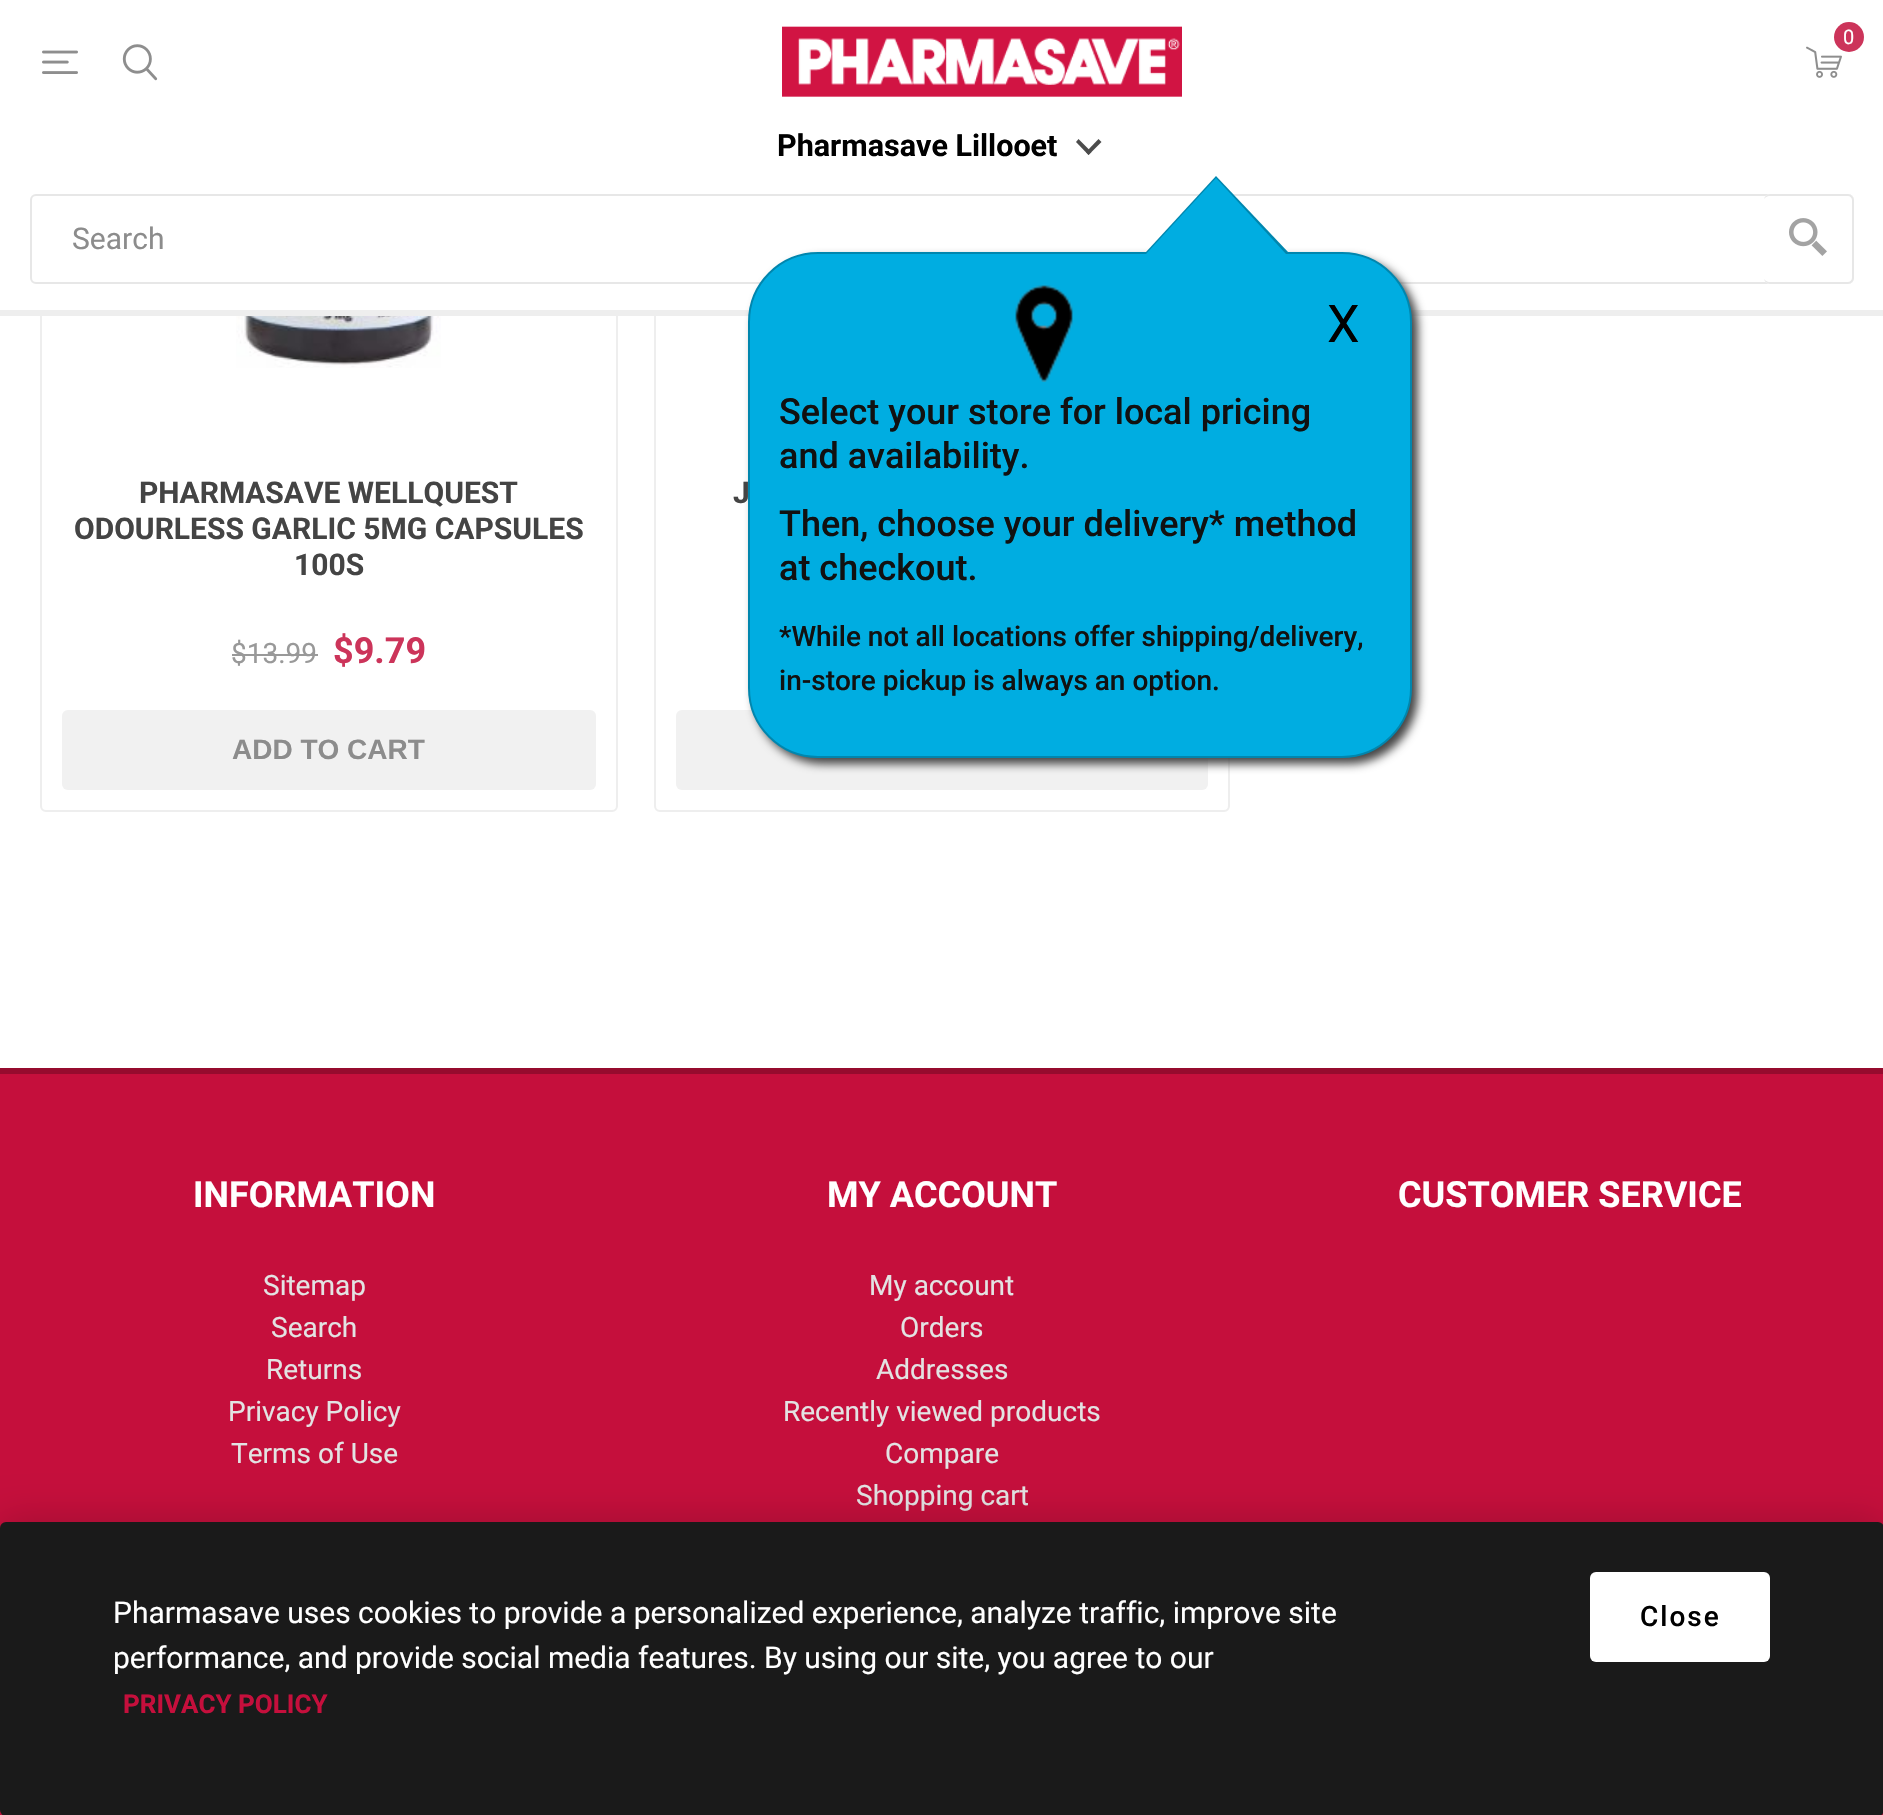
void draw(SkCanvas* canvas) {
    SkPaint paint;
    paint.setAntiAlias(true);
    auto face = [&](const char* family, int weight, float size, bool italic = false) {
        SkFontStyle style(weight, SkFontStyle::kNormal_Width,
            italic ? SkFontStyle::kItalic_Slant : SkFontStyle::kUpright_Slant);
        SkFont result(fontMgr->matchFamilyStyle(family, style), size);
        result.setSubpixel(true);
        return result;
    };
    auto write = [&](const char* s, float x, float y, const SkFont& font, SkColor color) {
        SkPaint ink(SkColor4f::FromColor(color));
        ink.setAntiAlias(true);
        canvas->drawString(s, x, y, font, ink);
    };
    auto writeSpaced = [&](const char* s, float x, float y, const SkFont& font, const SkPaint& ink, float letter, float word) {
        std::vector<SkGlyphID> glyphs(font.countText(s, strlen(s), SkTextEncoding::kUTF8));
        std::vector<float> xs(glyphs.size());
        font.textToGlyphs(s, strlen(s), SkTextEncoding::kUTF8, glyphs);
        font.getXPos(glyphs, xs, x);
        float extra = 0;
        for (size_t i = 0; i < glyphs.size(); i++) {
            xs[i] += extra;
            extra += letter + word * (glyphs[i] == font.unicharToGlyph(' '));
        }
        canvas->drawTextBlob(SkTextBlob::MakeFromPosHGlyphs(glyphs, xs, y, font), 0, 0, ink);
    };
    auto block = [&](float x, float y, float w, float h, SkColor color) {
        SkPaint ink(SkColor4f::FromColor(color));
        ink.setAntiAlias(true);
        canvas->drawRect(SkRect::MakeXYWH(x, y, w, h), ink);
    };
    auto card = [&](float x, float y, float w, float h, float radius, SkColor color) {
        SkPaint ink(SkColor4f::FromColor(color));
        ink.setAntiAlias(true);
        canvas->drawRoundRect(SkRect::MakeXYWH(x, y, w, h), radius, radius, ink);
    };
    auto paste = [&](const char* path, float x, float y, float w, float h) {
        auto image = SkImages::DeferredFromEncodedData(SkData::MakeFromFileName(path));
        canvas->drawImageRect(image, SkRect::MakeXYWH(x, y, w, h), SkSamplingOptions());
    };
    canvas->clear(SK_ColorWHITE);
    paint.setStyle(SkPaint::kStroke_Style);
    paint.setStrokeWidth(2);
    paint.setColor(SkColorSetRGB(238, 238, 238));
    canvas->drawRoundRect(SkRect::MakeXYWH(41, -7, 576, 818), 5, 5, paint);
    canvas->drawRoundRect(SkRect::MakeXYWH(655, -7, 574, 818), 5, 5, paint);
    block(40, 0, 1190, 310, SK_ColorWHITE);
    block(0, 310, 1883, 6, SkColorSetRGB(238, 238, 238));
    paint.setColor(SkColorSetRGB(231, 231, 231));
    canvas->drawRoundRect(SkRect::MakeXYWH(31, 195, 1822, 88), 5, 5, paint);
    auto kFont1 = face("Roboto", 400, 30);
    write("Search", 72, 249, kFont1, SkColorSetRGB(140, 140, 140));
    card(1764, 194, 90, 90, 6, SK_ColorWHITE);
    paint.setStyle(SkPaint::kFill_Style);
    canvas->drawPath(SkPathBuilder(SkPathFillType::kEvenOdd).moveTo(1770, 194).lineTo(1848, 194).cubicTo(1851, 194, 1854, 197, 1854, 200).lineTo(1854, 278).cubicTo(1854, 281, 1851, 284, 1848, 284).lineTo(1770, 284).cubicTo(1767, 284, 1764, 281, 1764, 278).lineTo(1764, 200).cubicTo(1764, 197, 1767, 194, 1770, 194).close().moveTo(1770, 196).lineTo(1848, 196).cubicTo(1850, 196, 1852, 198, 1852, 200).lineTo(1852, 278).cubicTo(1852, 280, 1850, 282, 1848, 282).lineTo(1770, 282).cubicTo(1767, 282, 1764, 280, 1764, 278).lineTo(1764, 200).cubicTo(1764, 198, 1767, 196, 1770, 196).close().detach(), paint);
    paste("pic1.png", 1789, 218, 38, 38);
    paste("pic2.png", 782, 26, 400, 71);
    paste("pic3.png", 1806, 46, 36, 32);
    paint.setColor(SkColorSetRGB(204, 52, 90));
    canvas->drawCircle(1849, 37, 15, paint);
    auto kFont2 = face("Roboto", 400, 20);
    write("0", 1843, 44, kFont2, SK_ColorWHITE);
    paste("pic4.png", 42, 50, 36, 24);
    paste("pic5.png", 122, 44, 36, 37);
    auto kFont3 = face("Roboto", 700, 30.5f);
    write("Pharmasave Lillooet", 777, 156, kFont3, SK_ColorBLACK);
    paint.setColor(SkColorSetRGB(76, 76, 76));
    canvas->drawPath(SkPathBuilder().moveTo(1078.5f, 139).lineTo(1091.5f, 152).lineTo(1088.5f, 155).lineTo(1076, 142).close().detach(), paint);
    canvas->drawPath(SkPathBuilder().moveTo(1086, 152).lineTo(1098.5f, 139).lineTo(1101.5f, 142).lineTo(1088.5f, 155).close().detach(), paint);
    card(676, 710, 532, 80, 6, SkColorSetRGB(241, 241, 241));
    paint.setColor(SkColorSetRGB(68, 68, 68));
    paint.setMaskFilter(SkMaskFilter::MakeBlur(kNormal_SkBlurStyle, 5));
    canvas->drawRoundRect(SkRect::MakeXYWH(754, 258, 664, 506), 70, 70, paint);
    paint.setMaskFilter(nullptr);
    paint.setColor(SkColorSetRGB(0, 173, 225));
    canvas->drawRoundRect(SkRect::MakeXYWH(749, 253, 662, 504), 69, 69, paint);
    paint.setStyle(SkPaint::kStroke_Style);
    paint.setColor(SkColorSetRGB(0, 134, 174));
    canvas->drawRoundRect(SkRect::MakeXYWH(749, 253, 662, 504), 69, 69, paint);
    paint.setStyle(SkPaint::kFill_Style);
    canvas->drawPath(SkPathBuilder().moveTo(1288, 252).lineTo(1146, 252).lineTo(1216, 176).close().detach(), paint);
    paint.setColor(SkColorSetRGB(0, 173, 225));
    canvas->drawPath(SkPathBuilder().moveTo(1286, 254).lineTo(1146, 254).lineTo(1216, 178).close().detach(), paint);
    paste("pic6.png", 1015, 284, 59, 98);
    auto kFont4 = face("Roboto", 400, 52);
    write("X", 1327, 342, kFont4, SK_ColorBLACK);
    auto kFont5 = face("Roboto", 500, 36);
    write("Select your store for local pricing", 779, 424, kFont5, SkColorSetRGB(17, 17, 17));
    write("and availability.", 779, 468, kFont5, SkColorSetRGB(17, 17, 17));
    write("Then, choose your delivery* method", 779, 536, kFont5, SkColorSetRGB(17, 17, 17));
    write("at checkout.", 779, 580, kFont5, SkColorSetRGB(17, 17, 17));
    auto kFont6 = face("Roboto", 500, 28);
    write("*While not all locations offer shipping/delivery,", 779, 646, kFont6, SkColorSetRGB(17, 17, 17));
    write("in-store pickup is always an option.", 779, 690, kFont6, SkColorSetRGB(17, 17, 17));
    paste("pic7.png", 236, 316, 205, 52);
    auto kFont7 = face("Roboto", 700, 30);
    write("PHARMASAVE WELLQUEST", 139, 503, kFont7, SkColorSetRGB(68, 68, 68));
    write("ODOURLESS GARLIC 5MG CAPSULES", 74, 539, kFont7, SkColorSetRGB(68, 68, 68));
    write("100S", 294, 575, kFont7, SkColorSetRGB(68, 68, 68));
    auto kFont8 = face("Roboto", 400, 28);
    write("$13.99", 231, 663, kFont8, SkColorSetRGB(153, 153, 153));
    block(232, 654, 86, 2, SkColorSetRGB(153, 153, 153));
    auto kFont9 = face("Roboto", 700, 36);
    write("$9.79", 333, 663, kFont9, SkColorSetRGB(204, 52, 90));
    card(62, 710, 534, 80, 6, SkColorSetRGB(241, 241, 241));
    auto kFont10 = face("Liberation Sans", 700, 28);
    write("ADD TO CART", 232, 759, kFont10, SkColorSetRGB(140, 140, 140));
    write("J", 733, 503, kFont7, SkColorSetRGB(68, 68, 68));
    block(0, 1074, 1883, 741, SkColorSetRGB(197, 15, 60));
    block(0, 1068, 1883, 6, SkColorSetRGB(150, 11, 46));
    write("INFORMATION", 193, 1207, kFont9, SK_ColorWHITE);
    write("Sitemap", 263, 1295, kFont8, SkColorSetRGB(227, 227, 227));
    write("Search", 271, 1337, kFont8, SkColorSetRGB(227, 227, 227));
    write("Returns", 266, 1379, kFont8, SkColorSetRGB(227, 227, 227));
    write("Privacy Policy", 228, 1421, kFont8, SkColorSetRGB(227, 227, 227));
    write("Terms of Use", 231, 1463, kFont8, SkColorSetRGB(227, 227, 227));
    write("MY ACCOUNT", 827, 1207, kFont9, SK_ColorWHITE);
    write("My account", 869, 1295, kFont8, SkColorSetRGB(227, 227, 227));
    write("Orders", 900, 1337, kFont8, SkColorSetRGB(227, 227, 227));
    write("Addresses", 876, 1379, kFont8, SkColorSetRGB(227, 227, 227));
    write("Recently viewed products", 783, 1421, kFont8, SkColorSetRGB(227, 227, 227));
    write("Compare", 885, 1463, kFont8, SkColorSetRGB(227, 227, 227));
    write("Shopping cart", 856, 1505, kFont8, SkColorSetRGB(227, 227, 227));
    write("CUSTOMER SERVICE", 1398, 1207, kFont9, SK_ColorWHITE);
    paint.setColor(SkColorSetARGB(51, 0, 0, 0));
    paint.setMaskFilter(SkMaskFilter::MakeBlur(kNormal_SkBlurStyle, 20));
    canvas->drawRoundRect(SkRect::MakeXYWH(0, 1522, 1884, 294), 6, 6, paint);
    paint.setMaskFilter(nullptr);
    card(0, 1522, 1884, 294, 6, SkColorSetRGB(26, 26, 26));
    write("Pharmasave uses cookies to provide a personalized experience, analyze traffic, improve site", 113, 1623, kFont1, SK_ColorWHITE);
    write("performance, and provide social media features. By using our site, you agree to our", 113, 1668, kFont1, SK_ColorWHITE);
    auto kFont11 = face("Roboto", 700, 26);
    write("PRIVACY POLICY", 123, 1713, kFont11, SkColorSetRGB(197, 15, 60));
    card(1590, 1572, 180, 90, 6, SK_ColorWHITE);
    paint.setColor(SK_ColorBLACK);
    writeSpaced("Close", 1640, 1626, kFont6, paint, 2, 0);
}
